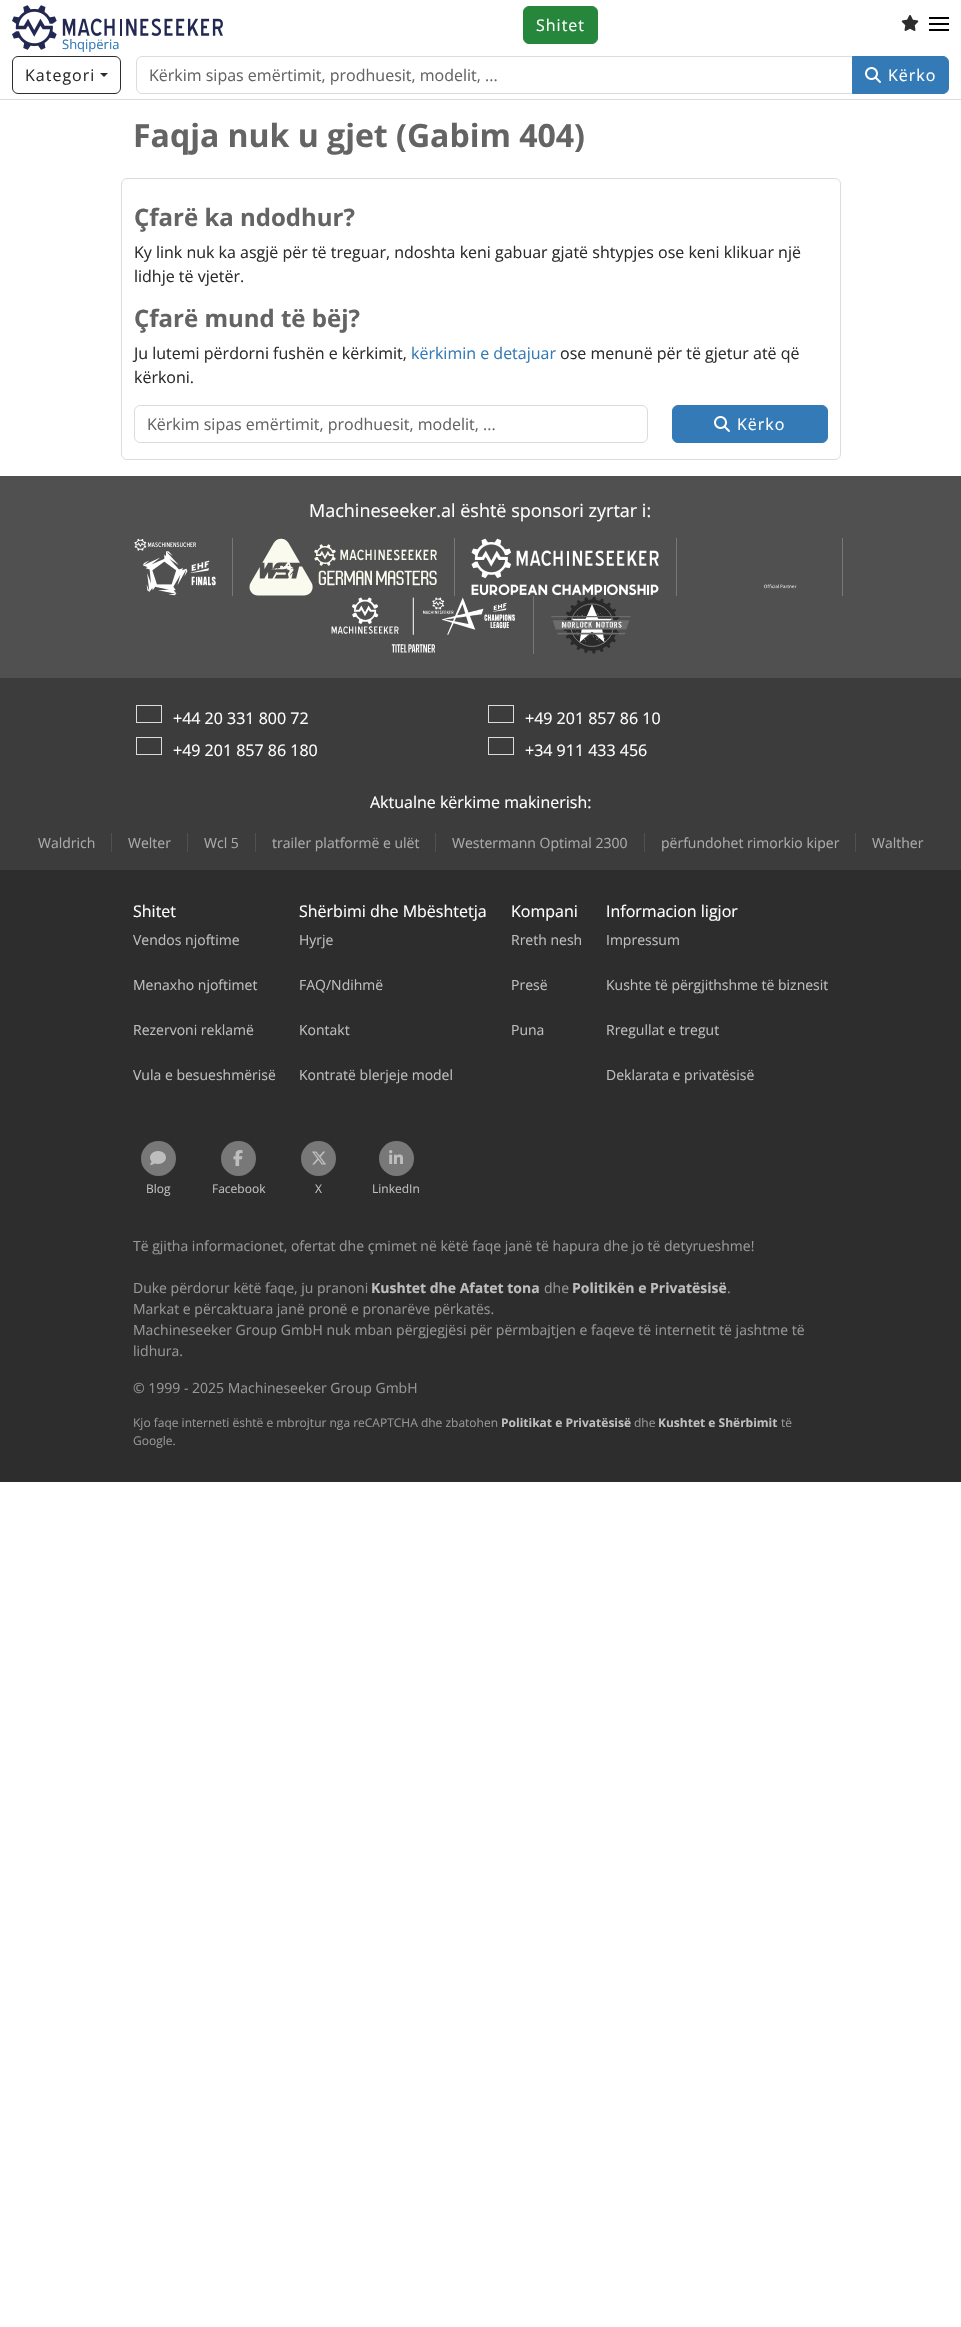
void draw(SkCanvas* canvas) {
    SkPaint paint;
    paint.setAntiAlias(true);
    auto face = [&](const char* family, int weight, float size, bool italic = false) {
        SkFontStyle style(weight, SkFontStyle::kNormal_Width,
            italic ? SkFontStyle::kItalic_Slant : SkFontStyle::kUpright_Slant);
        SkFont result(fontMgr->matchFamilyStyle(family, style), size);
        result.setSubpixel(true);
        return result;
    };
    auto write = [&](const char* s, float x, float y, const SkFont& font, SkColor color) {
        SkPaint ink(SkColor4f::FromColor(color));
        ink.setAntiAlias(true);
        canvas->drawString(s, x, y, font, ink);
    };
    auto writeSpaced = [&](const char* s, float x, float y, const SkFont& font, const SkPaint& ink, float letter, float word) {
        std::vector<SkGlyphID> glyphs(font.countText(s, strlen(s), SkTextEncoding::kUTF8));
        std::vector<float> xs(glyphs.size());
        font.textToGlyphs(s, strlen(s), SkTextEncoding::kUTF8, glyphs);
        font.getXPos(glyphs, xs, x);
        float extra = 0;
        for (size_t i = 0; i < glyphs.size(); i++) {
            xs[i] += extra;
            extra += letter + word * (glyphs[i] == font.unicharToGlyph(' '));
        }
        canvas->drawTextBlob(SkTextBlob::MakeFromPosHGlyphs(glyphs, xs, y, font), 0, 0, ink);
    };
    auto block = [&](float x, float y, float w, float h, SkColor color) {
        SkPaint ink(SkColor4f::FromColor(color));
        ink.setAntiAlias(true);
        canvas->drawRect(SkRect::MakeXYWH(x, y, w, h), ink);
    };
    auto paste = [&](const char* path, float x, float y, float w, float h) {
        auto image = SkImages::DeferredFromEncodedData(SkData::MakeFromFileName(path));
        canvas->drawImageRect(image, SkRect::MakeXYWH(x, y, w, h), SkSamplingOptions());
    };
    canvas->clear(SK_ColorWHITE);
    block(0, 99, 961, 1, SkColorSetRGB(220, 220, 220));
    paint.setColor(SkColorSetRGB(38, 134, 60));
    canvas->drawRoundRect(SkRect::MakeXYWH(523.5f, 6.5f, 74, 37), 5.5f, 5.5f, paint);
    paint.setStyle(SkPaint::kStroke_Style);
    paint.setStrokeWidth(1);
    canvas->drawRoundRect(SkRect::MakeXYWH(523.5f, 6.5f, 74, 37), 5.5f, 5.5f, paint);
    auto kFont1 = face("Open Sans", 400, 16);
    paint.setStyle(SkPaint::kFill_Style);
    paint.setColor(SK_ColorWHITE);
    writeSpaced("Shitet", 536, 31, kFont1, paint, 1, 0);
    paste("pic1.png", 901, 15, 18, 16);
    block(929, 17, 20, 2, SK_ColorBLACK);
    block(929, 23, 20, 2, SK_ColorBLACK);
    block(929, 29, 20, 2, SK_ColorBLACK);
    paste("pic2.png", 12, 5, 211, 45);
    auto kFont2 = face("Open Sans", 400, 13);
    write("Shqipëria", 62, 49, kFont2, SkColorSetRGB(51, 122, 183));
    paint.setStyle(SkPaint::kStroke_Style);
    paint.setColor(SkColorSetRGB(45, 45, 45));
    canvas->drawRoundRect(SkRect::MakeXYWH(12.5f, 56.5f, 108, 37), 5.5f, 5.5f, paint);
    paint.setStyle(SkPaint::kFill_Style);
    writeSpaced("Kategori", 25, 81, kFont1, paint, 1, 0);
    canvas->drawPath(SkPathBuilder().moveTo(100, 73).lineTo(108, 73).lineTo(104, 77).close().detach(), paint);
    paint.setStyle(SkPaint::kStroke_Style);
    paint.setColor(SkColorSetRGB(220, 220, 220));
    canvas->drawPath(SkPathBuilder().moveTo(142, 56.5f).lineTo(852.5f, 56.5f).lineTo(852.5f, 93.5f).lineTo(142, 93.5f).cubicTo(139, 93.5f, 136.5f, 91, 136.5f, 88).lineTo(136.5f, 62).cubicTo(136.5f, 59, 139, 56.5f, 142, 56.5f).close().detach(), paint);
    write("Kërkim sipas emërtimit, prodhuesit, modelit, ...", 149, 81, kFont1, SkColorSetRGB(100, 100, 100));
    paint.setStyle(SkPaint::kFill_Style);
    paint.setColor(SkColorSetRGB(51, 122, 183));
    canvas->drawPath(SkPathBuilder().moveTo(852.5f, 56.5f).lineTo(943, 56.5f).cubicTo(946, 56.5f, 948.5f, 59, 948.5f, 62).lineTo(948.5f, 88).cubicTo(948.5f, 91, 946, 93.5f, 943, 93.5f).lineTo(852.5f, 93.5f).close().detach(), paint);
    paint.setStyle(SkPaint::kStroke_Style);
    canvas->drawPath(SkPathBuilder().moveTo(852.5f, 56.5f).lineTo(943, 56.5f).cubicTo(946, 56.5f, 948.5f, 59, 948.5f, 62).lineTo(948.5f, 88).cubicTo(948.5f, 91, 946, 93.5f, 943, 93.5f).lineTo(852.5f, 93.5f).close().detach(), paint);
    paste("pic3.png", 865, 67, 16, 16);
    paint.setStyle(SkPaint::kFill_Style);
    paint.setColor(SK_ColorWHITE);
    writeSpaced("Kërko", 888, 81, kFont1, paint, 1, 0);
    auto kFont3 = face("Open Sans", 700, 32);
    write("Faqja nuk u gjet (Gabim 404)", 133, 147, kFont3, SkColorSetRGB(100, 100, 100));
    paint.setStyle(SkPaint::kStroke_Style);
    paint.setColor(SkColorSetRGB(220, 220, 220));
    canvas->drawRoundRect(SkRect::MakeXYWH(121.5f, 178.5f, 719, 281), 5.5f, 5.5f, paint);
    auto kFont4 = face("Open Sans", 700, 24);
    write("Çfarë ka ndodhur?", 134, 226, kFont4, SkColorSetRGB(100, 100, 100));
    write("Ky link nuk ka asgjë për të treguar, ndoshta keni gabuar gjatë shtypjes ose keni klikuar një", 134, 258, kFont1, SkColorSetRGB(45, 45, 45));
    write("lidhje të vjetër.", 134, 282, kFont1, SkColorSetRGB(45, 45, 45));
    write("Çfarë mund të bëj?", 134, 327, kFont4, SkColorSetRGB(100, 100, 100));
    write("Ju lutemi përdorni fushën e kërkimit,", 134, 359, kFont1, SkColorSetRGB(45, 45, 45));
    write("kërkimin e detajuar", 411, 359, kFont1, SkColorSetRGB(51, 122, 183));
    write("ose menunë për të gjetur atë që", 560, 359, kFont1, SkColorSetRGB(45, 45, 45));
    write("kërkoni.", 134, 383, kFont1, SkColorSetRGB(45, 45, 45));
    canvas->drawRoundRect(SkRect::MakeXYWH(134.5f, 405.5f, 513, 37), 5.5f, 5.5f, paint);
    write("Kërkim sipas emërtimit, prodhuesit, modelit, ...", 147, 430, kFont1, SkColorSetRGB(100, 100, 100));
    paint.setStyle(SkPaint::kFill_Style);
    paint.setColor(SkColorSetRGB(51, 122, 183));
    canvas->drawRoundRect(SkRect::MakeXYWH(672.5f, 405.5f, 155, 37), 5.5f, 5.5f, paint);
    paint.setStyle(SkPaint::kStroke_Style);
    canvas->drawRoundRect(SkRect::MakeXYWH(672.5f, 405.5f, 155, 37), 5.5f, 5.5f, paint);
    paste("pic3.png", 714, 416, 16, 16);
    paint.setStyle(SkPaint::kFill_Style);
    paint.setColor(SK_ColorWHITE);
    writeSpaced("Kërko", 737, 430, kFont1, paint, 1, 0);
    block(0, 476, 961, 202, SkColorSetRGB(80, 80, 80));
    auto kFont5 = face("Open Sans", 400, 18);
    write("Machineseeker.al është sponsori zyrtar i:", 309, 517, kFont5, SK_ColorWHITE);
    block(232, 538, 1, 58, SkColorSetRGB(120, 120, 120));
    paste("pic4.png", 134, 538, 82, 58);
    block(454, 538, 1, 58, SkColorSetRGB(120, 120, 120));
    paste("pic5.png", 249, 538, 188, 58);
    block(676, 538, 1, 58, SkColorSetRGB(120, 120, 120));
    paste("pic6.png", 471, 538, 188, 58);
    block(842, 538, 1, 58, SkColorSetRGB(120, 120, 120));
    paste("pic7.png", 763, 584, 34, 5);
    block(533, 596, 1, 58, SkColorSetRGB(120, 120, 120));
    paste("pic8.png", 331, 597, 184, 56);
    paste("pic9.png", 551, 596, 80, 58);
    block(0, 678, 961, 192, SkColorSetRGB(60, 60, 60));
    paint.setStyle(SkPaint::kStroke_Style);
    paint.setColor(SkColorSetRGB(220, 220, 220));
    canvas->drawRect(SkRect::MakeXYWH(136.5f, 705.5f, 25, 17), paint);
    write("+44 20 331 800 72", 173, 724, kFont1, SK_ColorWHITE);
    canvas->drawRect(SkRect::MakeXYWH(488.5f, 705.5f, 25, 17), paint);
    write("+49 201 857 86 10", 525, 724, kFont1, SK_ColorWHITE);
    canvas->drawRect(SkRect::MakeXYWH(136.5f, 737.5f, 25, 17), paint);
    write("+49 201 857 86 180", 173, 756, kFont1, SK_ColorWHITE);
    canvas->drawRect(SkRect::MakeXYWH(488.5f, 737.5f, 25, 17), paint);
    write("+34 911 433 456", 525, 756, kFont1, SK_ColorWHITE);
    write("Aktualne kërkime makinerish:", 370, 808, kFont1, SK_ColorWHITE);
    auto kFont6 = face("Open Sans", 400, 14);
    write("Waldrich", 38, 848, kFont6, SkColorSetRGB(170, 170, 170));
    block(111, 833, 1, 19, SkColorSetRGB(80, 80, 80));
    write("Welter", 128, 848, kFont6, SkColorSetRGB(170, 170, 170));
    block(187, 833, 1, 19, SkColorSetRGB(80, 80, 80));
    write("Wcl 5", 204, 848, kFont6, SkColorSetRGB(170, 170, 170));
    block(255, 833, 1, 19, SkColorSetRGB(80, 80, 80));
    write("trailer platformë e ulët", 272, 848, kFont6, SkColorSetRGB(170, 170, 170));
    block(435, 833, 1, 19, SkColorSetRGB(80, 80, 80));
    write("Westermann Optimal 2300", 452, 848, kFont6, SkColorSetRGB(170, 170, 170));
    block(644, 833, 1, 19, SkColorSetRGB(80, 80, 80));
    write("përfundohet rimorkio kiper", 661, 848, kFont6, SkColorSetRGB(170, 170, 170));
    block(855, 833, 1, 19, SkColorSetRGB(80, 80, 80));
    write("Walther", 872, 848, kFont6, SkColorSetRGB(170, 170, 170));
    block(0, 870, 961, 612, SkColorSetRGB(45, 45, 45));
    write("Shitet", 133, 917, kFont1, SK_ColorWHITE);
    write("Vendos njoftime", 133, 945, kFont6, SkColorSetRGB(190, 190, 190));
    write("Menaxho njoftimet", 133, 990, kFont6, SkColorSetRGB(190, 190, 190));
    write("Rezervoni reklamë", 133, 1035, kFont6, SkColorSetRGB(190, 190, 190));
    write("Vula e besueshmërisë", 133, 1080, kFont6, SkColorSetRGB(190, 190, 190));
    write("Shërbimi dhe Mbështetja", 299, 917, kFont1, SK_ColorWHITE);
    write("Hyrje", 299, 945, kFont6, SkColorSetRGB(190, 190, 190));
    write("FAQ/Ndihmë", 299, 990, kFont6, SkColorSetRGB(190, 190, 190));
    write("Kontakt", 299, 1035, kFont6, SkColorSetRGB(190, 190, 190));
    write("Kontratë blerjeje model", 299, 1080, kFont6, SkColorSetRGB(190, 190, 190));
    write("Kompani", 511, 917, kFont1, SK_ColorWHITE);
    write("Rreth nesh", 511, 945, kFont6, SkColorSetRGB(190, 190, 190));
    write("Presë", 511, 990, kFont6, SkColorSetRGB(190, 190, 190));
    write("Puna", 511, 1035, kFont6, SkColorSetRGB(190, 190, 190));
    write("Informacion ligjor", 606, 917, kFont1, SK_ColorWHITE);
    write("Impressum", 606, 945, kFont6, SkColorSetRGB(190, 190, 190));
    write("Kushte të përgjithshme të biznesit", 606, 990, kFont6, SkColorSetRGB(190, 190, 190));
    write("Rregullat e tregut", 606, 1035, kFont6, SkColorSetRGB(190, 190, 190));
    write("Deklarata e privatësisë", 606, 1080, kFont6, SkColorSetRGB(190, 190, 190));
    paint.setStyle(SkPaint::kFill_Style);
    paint.setColor(SkColorSetRGB(120, 120, 120));
    canvas->drawCircle(158.5f, 1158.5f, 17.5f, paint);
    paste("pic10.png", 150, 1151, 16, 14);
    auto kFont7 = face("Open Sans", 400, 12);
    write("Blog", 146, 1193, kFont7, SkColorSetRGB(190, 190, 190));
    canvas->drawCircle(238.5f, 1158.5f, 17.5f, paint);
    paste("pic11.png", 233, 1150, 10, 16);
    write("Facebook", 212, 1193, kFont7, SkColorSetRGB(190, 190, 190));
    canvas->drawCircle(318.5f, 1158.5f, 17.5f, paint);
    paste("pic12.png", 312, 1151, 14, 14);
    write("X", 315, 1193, kFont7, SkColorSetRGB(190, 190, 190));
    canvas->drawCircle(396.5f, 1158.5f, 17.5f, paint);
    paste("pic13.png", 389, 1150, 14, 14);
    write("LinkedIn", 372, 1193, kFont7, SkColorSetRGB(190, 190, 190));
    write("Të gjitha informacionet, ofertat dhe çmimet në këtë faqe janë të hapura dhe jo të detyrueshme!", 133, 1251, kFont6, SkColorSetRGB(150, 150, 150));
    write("Duke përdorur këtë faqe, ju pranoni", 133, 1293, kFont6, SkColorSetRGB(150, 150, 150));
    auto kFont8 = face("Open Sans", 700, 14);
    write("Kushtet dhe Afatet tona", 371, 1293, kFont8, SkColorSetRGB(190, 190, 190));
    write("dhe", 544, 1293, kFont6, SkColorSetRGB(150, 150, 150));
    write("Politikën e Privatësisë", 572, 1293, kFont8, SkColorSetRGB(190, 190, 190));
    write(".", 727, 1293, kFont6, SkColorSetRGB(150, 150, 150));
    write("Markat e përcaktuara janë pronë e pronarëve përkatës.", 133, 1314, kFont6, SkColorSetRGB(150, 150, 150));
    write("Machineseeker Group GmbH nuk mban përgjegjësi për përmbajtjen e faqeve të internetit të jashtme të", 133, 1335, kFont6, SkColorSetRGB(150, 150, 150));
    write("lidhura.", 133, 1356, kFont6, SkColorSetRGB(150, 150, 150));
    write("© 1999 - 2025 Machineseeker Group GmbH", 133, 1393, kFont6, SkColorSetRGB(150, 150, 150));
    write("Kjo faqe interneti është e mbrojtur nga reCAPTCHA dhe zbatohen", 133, 1427, kFont7, SkColorSetRGB(150, 150, 150));
    auto kFont9 = face("Open Sans", 700, 12);
    write("Politikat e Privatësisë", 501, 1427, kFont9, SkColorSetRGB(190, 190, 190));
    write("dhe", 634, 1427, kFont7, SkColorSetRGB(150, 150, 150));
    write("Kushtet e Shërbimit", 658, 1427, kFont9, SkColorSetRGB(190, 190, 190));
    write("të", 781, 1427, kFont7, SkColorSetRGB(150, 150, 150));
    write("Google.", 133, 1445, kFont7, SkColorSetRGB(150, 150, 150));
}
